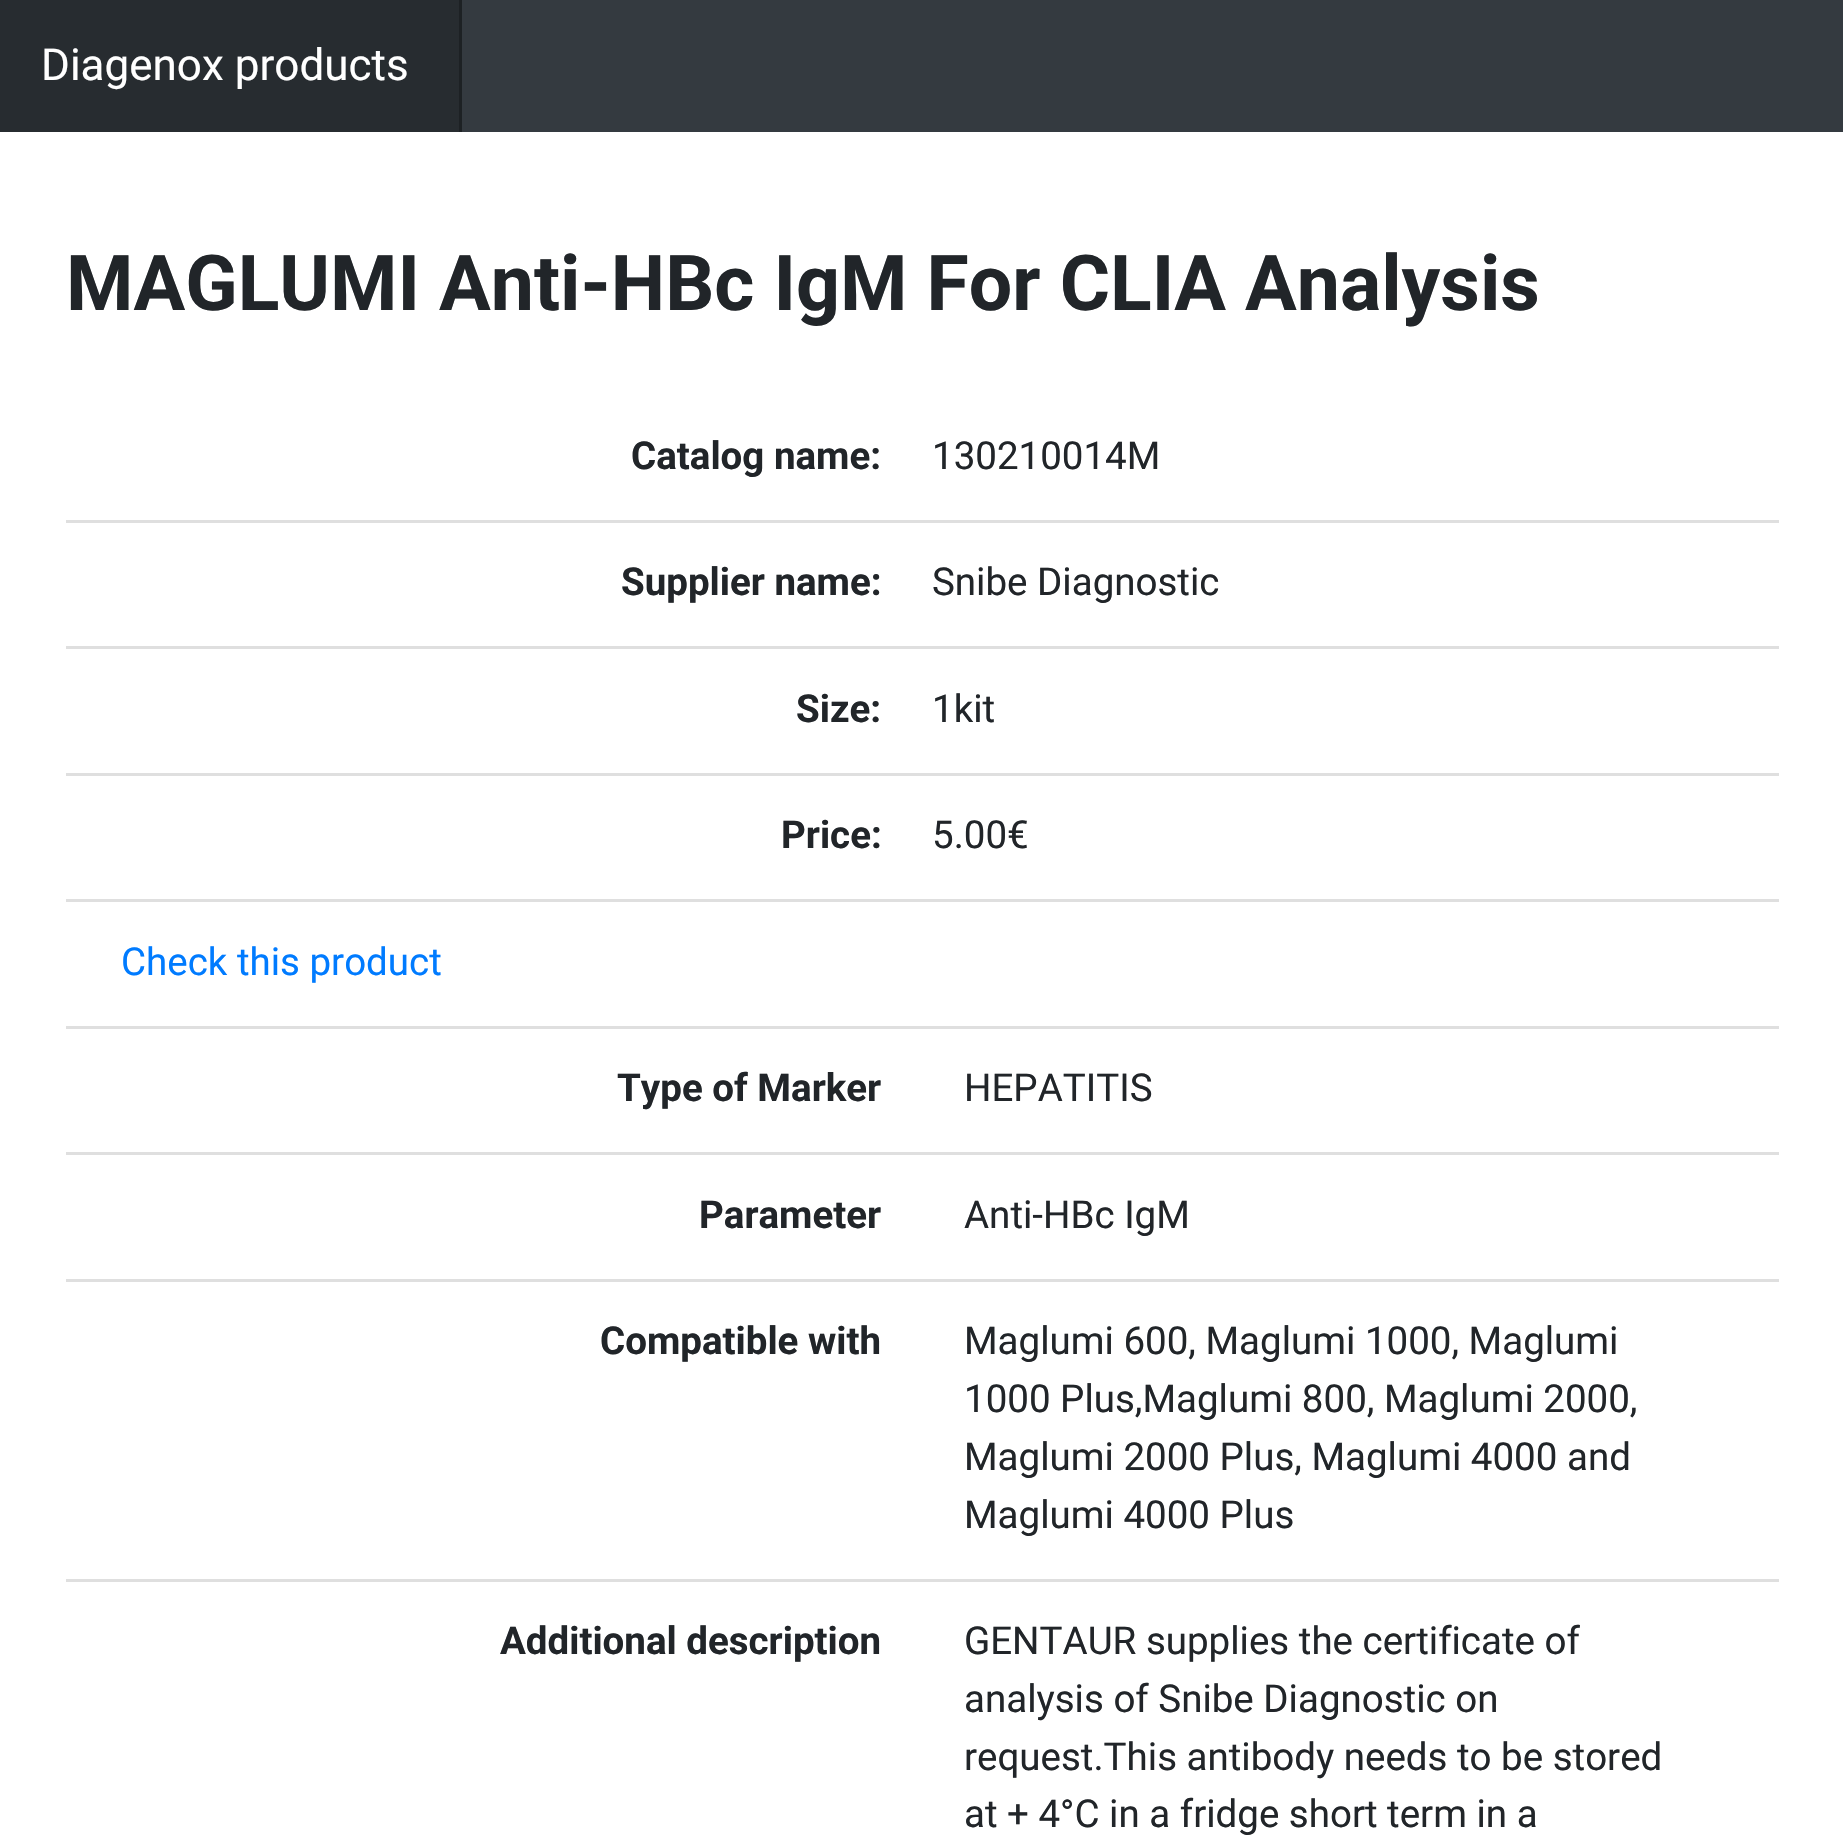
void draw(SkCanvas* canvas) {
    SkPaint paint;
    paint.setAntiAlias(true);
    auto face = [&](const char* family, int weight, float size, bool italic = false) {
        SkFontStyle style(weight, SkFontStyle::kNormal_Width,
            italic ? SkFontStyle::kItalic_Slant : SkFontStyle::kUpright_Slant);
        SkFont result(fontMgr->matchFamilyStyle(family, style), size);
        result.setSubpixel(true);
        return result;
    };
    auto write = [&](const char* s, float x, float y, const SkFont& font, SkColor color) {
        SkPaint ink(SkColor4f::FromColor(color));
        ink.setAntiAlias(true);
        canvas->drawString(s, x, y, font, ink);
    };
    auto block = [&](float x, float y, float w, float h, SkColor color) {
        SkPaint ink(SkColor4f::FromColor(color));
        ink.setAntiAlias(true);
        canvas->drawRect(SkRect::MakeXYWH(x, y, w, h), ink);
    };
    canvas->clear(SK_ColorWHITE);
    block(462, 0, 1381, 132, SkColorSetRGB(52, 58, 64));
    block(0, 0, 459, 132, SkColorSetRGB(39, 44, 48));
    block(459, 0, 3, 132, SkColorSetRGB(29, 33, 36));
    auto kFont1 = face("Roboto", 400, 44);
    write("Diagenox products", 41, 80, kFont1, SK_ColorWHITE);
    auto kFont2 = face("Roboto", 700, 77);
    write("MAGLUMI Anti-HBc IgM For CLIA Analysis", 66, 310, kFont2, SkColorSetRGB(33, 37, 41));
    auto kFont3 = face("Roboto", 700, 38.5f);
    write("Catalog name:", 631, 469, kFont3, SkColorSetRGB(33, 37, 41));
    auto kFont4 = face("Roboto", 400, 38.5f);
    write("130210014M", 932, 469, kFont4, SkColorSetRGB(33, 37, 41));
    block(66, 520, 1713, 3, SkColorSetRGB(223, 223, 223));
    write("Supplier name:", 621, 595, kFont3, SkColorSetRGB(33, 37, 41));
    write("Snibe Diagnostic", 932, 595, kFont4, SkColorSetRGB(33, 37, 41));
    block(66, 646, 1713, 3, SkColorSetRGB(223, 223, 223));
    write("Size:", 796, 722, kFont3, SkColorSetRGB(33, 37, 41));
    write("1kit", 932, 722, kFont4, SkColorSetRGB(33, 37, 41));
    block(66, 773, 1713, 3, SkColorSetRGB(223, 223, 223));
    write("Price:", 781, 848, kFont3, SkColorSetRGB(33, 37, 41));
    write("5.00€", 932, 848, kFont4, SkColorSetRGB(33, 37, 41));
    block(66, 899, 1713, 3, SkColorSetRGB(223, 223, 223));
    write("Check this product", 121, 975, kFont4, SkColorSetRGB(0, 123, 255));
    block(66, 1026, 1713, 3, SkColorSetRGB(223, 223, 223));
    write("Type of Marker", 617, 1101, kFont3, SkColorSetRGB(33, 37, 41));
    write("HEPATITIS", 964, 1101, kFont4, SkColorSetRGB(33, 37, 41));
    block(66, 1152, 1713, 3, SkColorSetRGB(223, 223, 223));
    write("Parameter", 699, 1228, kFont3, SkColorSetRGB(33, 37, 41));
    write("Anti-HBc IgM", 964, 1228, kFont4, SkColorSetRGB(33, 37, 41));
    block(66, 1279, 1713, 3, SkColorSetRGB(223, 223, 223));
    write("Compatible with", 600, 1354, kFont3, SkColorSetRGB(33, 37, 41));
    write("Maglumi 600, Maglumi 1000, Maglumi", 964, 1354, kFont4, SkColorSetRGB(33, 37, 41));
    write("1000 Plus,Maglumi 800, Maglumi 2000,", 964, 1412, kFont4, SkColorSetRGB(33, 37, 41));
    write("Maglumi 2000 Plus, Maglumi 4000 and", 964, 1470, kFont4, SkColorSetRGB(33, 37, 41));
    write("Maglumi 4000 Plus", 964, 1528, kFont4, SkColorSetRGB(33, 37, 41));
    block(66, 1579, 1713, 3, SkColorSetRGB(223, 223, 223));
    write("Additional description", 500, 1654, kFont3, SkColorSetRGB(33, 37, 41));
    write("GENTAUR supplies the certificate of", 964, 1654, kFont4, SkColorSetRGB(33, 37, 41));
    write("analysis of Snibe Diagnostic on", 964, 1712, kFont4, SkColorSetRGB(33, 37, 41));
    write("request.This antibody needs to be stored", 964, 1770, kFont4, SkColorSetRGB(33, 37, 41));
    write("at + 4°C in a fridge short term in a", 964, 1827, kFont4, SkColorSetRGB(33, 37, 41));
}
